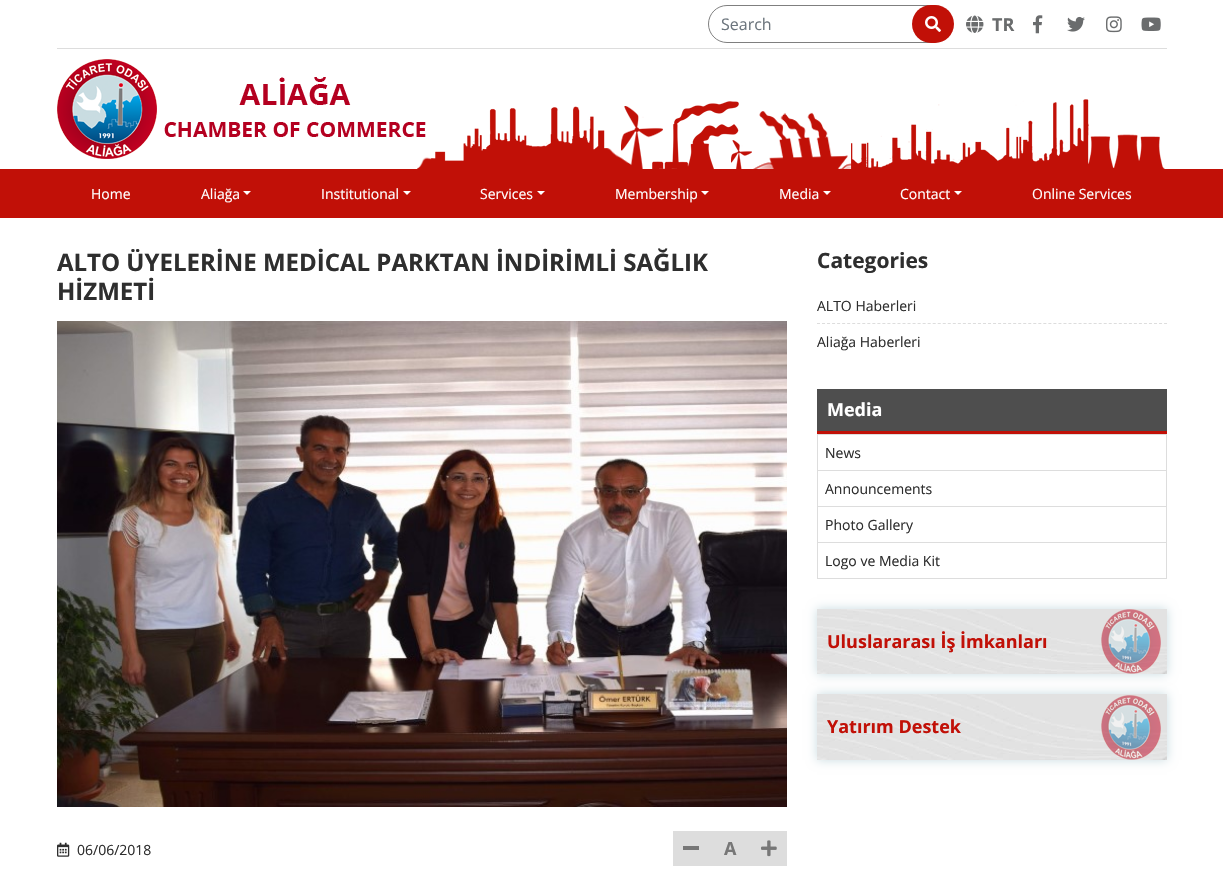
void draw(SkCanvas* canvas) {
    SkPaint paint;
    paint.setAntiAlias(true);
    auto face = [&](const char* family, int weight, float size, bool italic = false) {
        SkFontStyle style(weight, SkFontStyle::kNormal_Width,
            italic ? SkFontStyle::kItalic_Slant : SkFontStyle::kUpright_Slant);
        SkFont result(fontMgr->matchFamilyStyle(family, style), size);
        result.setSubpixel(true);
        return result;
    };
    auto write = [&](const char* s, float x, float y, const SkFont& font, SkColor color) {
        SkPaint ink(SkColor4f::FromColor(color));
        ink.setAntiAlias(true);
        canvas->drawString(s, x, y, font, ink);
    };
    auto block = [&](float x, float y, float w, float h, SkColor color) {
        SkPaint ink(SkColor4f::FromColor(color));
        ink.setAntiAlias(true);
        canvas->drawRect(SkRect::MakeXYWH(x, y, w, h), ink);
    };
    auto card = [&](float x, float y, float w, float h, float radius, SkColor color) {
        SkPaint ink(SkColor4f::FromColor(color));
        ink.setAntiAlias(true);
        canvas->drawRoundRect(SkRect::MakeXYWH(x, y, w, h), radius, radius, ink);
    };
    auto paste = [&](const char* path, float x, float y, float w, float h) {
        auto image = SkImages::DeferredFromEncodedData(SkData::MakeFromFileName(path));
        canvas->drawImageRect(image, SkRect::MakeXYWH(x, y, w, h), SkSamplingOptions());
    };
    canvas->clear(SK_ColorWHITE);
    block(57, 48, 1110, 1, SkColorSetRGB(221, 221, 221));
    paint.setStyle(SkPaint::kStroke_Style);
    paint.setStrokeWidth(1);
    paint.setColor(SkColorSetRGB(127, 127, 127));
    canvas->drawRoundRect(SkRect::MakeXYWH(708.5f, 5.5f, 242, 37), 18.5f, 18.5f, paint);
    auto kFont1 = face("Open Sans", 400, 16);
    write("Search", 721, 30, kFont1, SkColorSetRGB(108, 117, 125));
    card(912, 5, 42, 38, 19, SkColorSetRGB(193, 16, 7));
    paste("pic1.png", 925, 16, 16, 16);
    paste("pic2.png", 966, 15, 18, 18);
    auto kFont2 = face("Open Sans", 700, 18);
    write("TR", 992, 31, kFont2, SkColorSetRGB(106, 108, 109));
    paste("pic3.png", 1033, 15, 10, 19);
    paste("pic4.png", 1067, 16, 18, 16);
    paste("pic5.png", 1106, 16, 16, 17);
    paste("pic6.png", 1141, 17, 20, 14);
    paste("pic8.png", 417, 99, 748, 70);
    paste("pic7.png", 57, 59, 369, 100);
    block(0, 169, 1223, 49, SkColorSetRGB(193, 16, 7));
    auto kFont3 = face("Open Sans", 400, 14);
    write("Home", 91, 199, kFont3, SK_ColorWHITE);
    write("Aliağa", 201, 199, kFont3, SK_ColorWHITE);
    paint.setStyle(SkPaint::kFill_Style);
    paint.setColor(SK_ColorWHITE);
    canvas->drawPath(SkPathBuilder().moveTo(243, 191).lineTo(251, 191).lineTo(247, 195).close().detach(), paint);
    write("Institutional", 321, 199, kFont3, SK_ColorWHITE);
    canvas->drawPath(SkPathBuilder().moveTo(403, 191).lineTo(411, 191).lineTo(407, 195).close().detach(), paint);
    write("Services", 480, 199, kFont3, SK_ColorWHITE);
    canvas->drawPath(SkPathBuilder().moveTo(537, 191).lineTo(545, 191).lineTo(541, 195).close().detach(), paint);
    write("Membership", 615, 199, kFont3, SK_ColorWHITE);
    canvas->drawPath(SkPathBuilder().moveTo(701, 191).lineTo(709, 191).lineTo(705, 195).close().detach(), paint);
    write("Media", 779, 199, kFont3, SK_ColorWHITE);
    canvas->drawPath(SkPathBuilder().moveTo(823, 191).lineTo(831, 191).lineTo(827, 195).close().detach(), paint);
    write("Contact", 900, 199, kFont3, SK_ColorWHITE);
    canvas->drawPath(SkPathBuilder().moveTo(954, 191).lineTo(962, 191).lineTo(958, 195).close().detach(), paint);
    write("Online Services", 1032, 199, kFont3, SK_ColorWHITE);
    auto kFont4 = face("Open Sans", 700, 24);
    write("ALTO ÜYELERİNE MEDİCAL PARKTAN İNDİRİMLİ SAĞLIK", 57, 271, kFont4, SkColorSetRGB(46, 46, 46));
    write("HİZMETİ", 57, 300, kFont4, SkColorSetRGB(46, 46, 46));
    paste("pic9.png", 57, 321, 730, 486);
    paste("pic10.png", 57, 842, 13, 15);
    write("06/06/2018", 77, 855, kFont3, SkColorSetRGB(46, 46, 46));
    block(673, 831, 114, 35, SkColorSetRGB(221, 221, 221));
    block(683, 846, 16, 4, SkColorSetRGB(119, 119, 119));
    write("A", 724, 855, kFont2, SkColorSetRGB(119, 119, 119));
    paste("pic11.png", 761, 840, 16, 17);
    auto kFont5 = face("Open Sans", 700, 21);
    write("Categories", 817, 268, kFont5, SkColorSetRGB(46, 46, 46));
    paint.setStyle(SkPaint::kStroke_Style);
    paint.setColor(SkColorSetRGB(221, 221, 221));
    paint.setPathEffect(SkDashPathEffect::Make({{3, 2.03f}}, 0));
    canvas->drawPath(SkPathBuilder().moveTo(817, 323.5f).lineTo(1167, 323.5f).detach(), paint);
    paint.setPathEffect(nullptr);
    write("ALTO Haberleri", 817, 311, kFont3, SkColorSetRGB(46, 46, 46));
    write("Aliağa Haberleri", 817, 347, kFont3, SkColorSetRGB(46, 46, 46));
    block(817, 389, 350, 42, SkColorSetRGB(78, 78, 78));
    block(817, 431, 350, 3, SkColorSetRGB(193, 16, 7));
    write("Media", 827, 416, kFont2, SK_ColorWHITE);
    block(817, 434, 350, 1, SkColorSetRGB(221, 221, 221));
    block(1166, 434, 1, 145, SkColorSetRGB(221, 221, 221));
    block(817, 434, 1, 145, SkColorSetRGB(221, 221, 221));
    block(818, 470, 348, 1, SkColorSetRGB(221, 221, 221));
    write("News", 825, 458, kFont3, SkColorSetRGB(46, 46, 46));
    block(818, 506, 348, 1, SkColorSetRGB(221, 221, 221));
    write("Announcements", 825, 494, kFont3, SkColorSetRGB(46, 46, 46));
    block(818, 542, 348, 1, SkColorSetRGB(221, 221, 221));
    write("Photo Gallery", 825, 530, kFont3, SkColorSetRGB(46, 46, 46));
    block(818, 578, 348, 1, SkColorSetRGB(221, 221, 221));
    write("Logo ve Media Kit", 825, 566, kFont3, SkColorSetRGB(46, 46, 46));
    paste("pic12.png", 817, 609, 350, 65);
    paste("pic13.png", 1101, 609, 60, 65);
    canvas->save();
    canvas->clipPath(SkPathBuilder(SkPathFillType::kEvenOdd).moveTo(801, 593).lineTo(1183, 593).lineTo(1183, 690).lineTo(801, 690).close().moveTo(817, 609).lineTo(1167, 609).lineTo(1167, 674).lineTo(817, 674).close().detach(), true);
    paint.setStyle(SkPaint::kFill_Style);
    paint.setColor(SkColorSetRGB(201, 220, 225));
    paint.setMaskFilter(SkMaskFilter::MakeBlur(kNormal_SkBlurStyle, 5));
    canvas->drawRect(SkRect::MakeXYWH(817, 609, 350, 65), paint);
    paint.setMaskFilter(nullptr);
    canvas->restore();
    write("Uluslararası İş İmkanları", 827, 648, kFont2, SkColorSetRGB(193, 16, 7));
    paste("pic14.png", 817, 694, 350, 66);
    paste("pic15.png", 1101, 695, 60, 65);
    canvas->save();
    canvas->clipPath(SkPathBuilder(SkPathFillType::kEvenOdd).moveTo(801, 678).lineTo(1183, 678).lineTo(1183, 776).lineTo(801, 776).close().moveTo(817, 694).lineTo(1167, 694).lineTo(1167, 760).lineTo(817, 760).close().detach(), true);
    paint.setMaskFilter(SkMaskFilter::MakeBlur(kNormal_SkBlurStyle, 5));
    canvas->drawRect(SkRect::MakeXYWH(817, 694, 350, 66), paint);
    paint.setMaskFilter(nullptr);
    canvas->restore();
    write("Yatırım Destek", 827, 733, kFont2, SkColorSetRGB(193, 16, 7));
}
